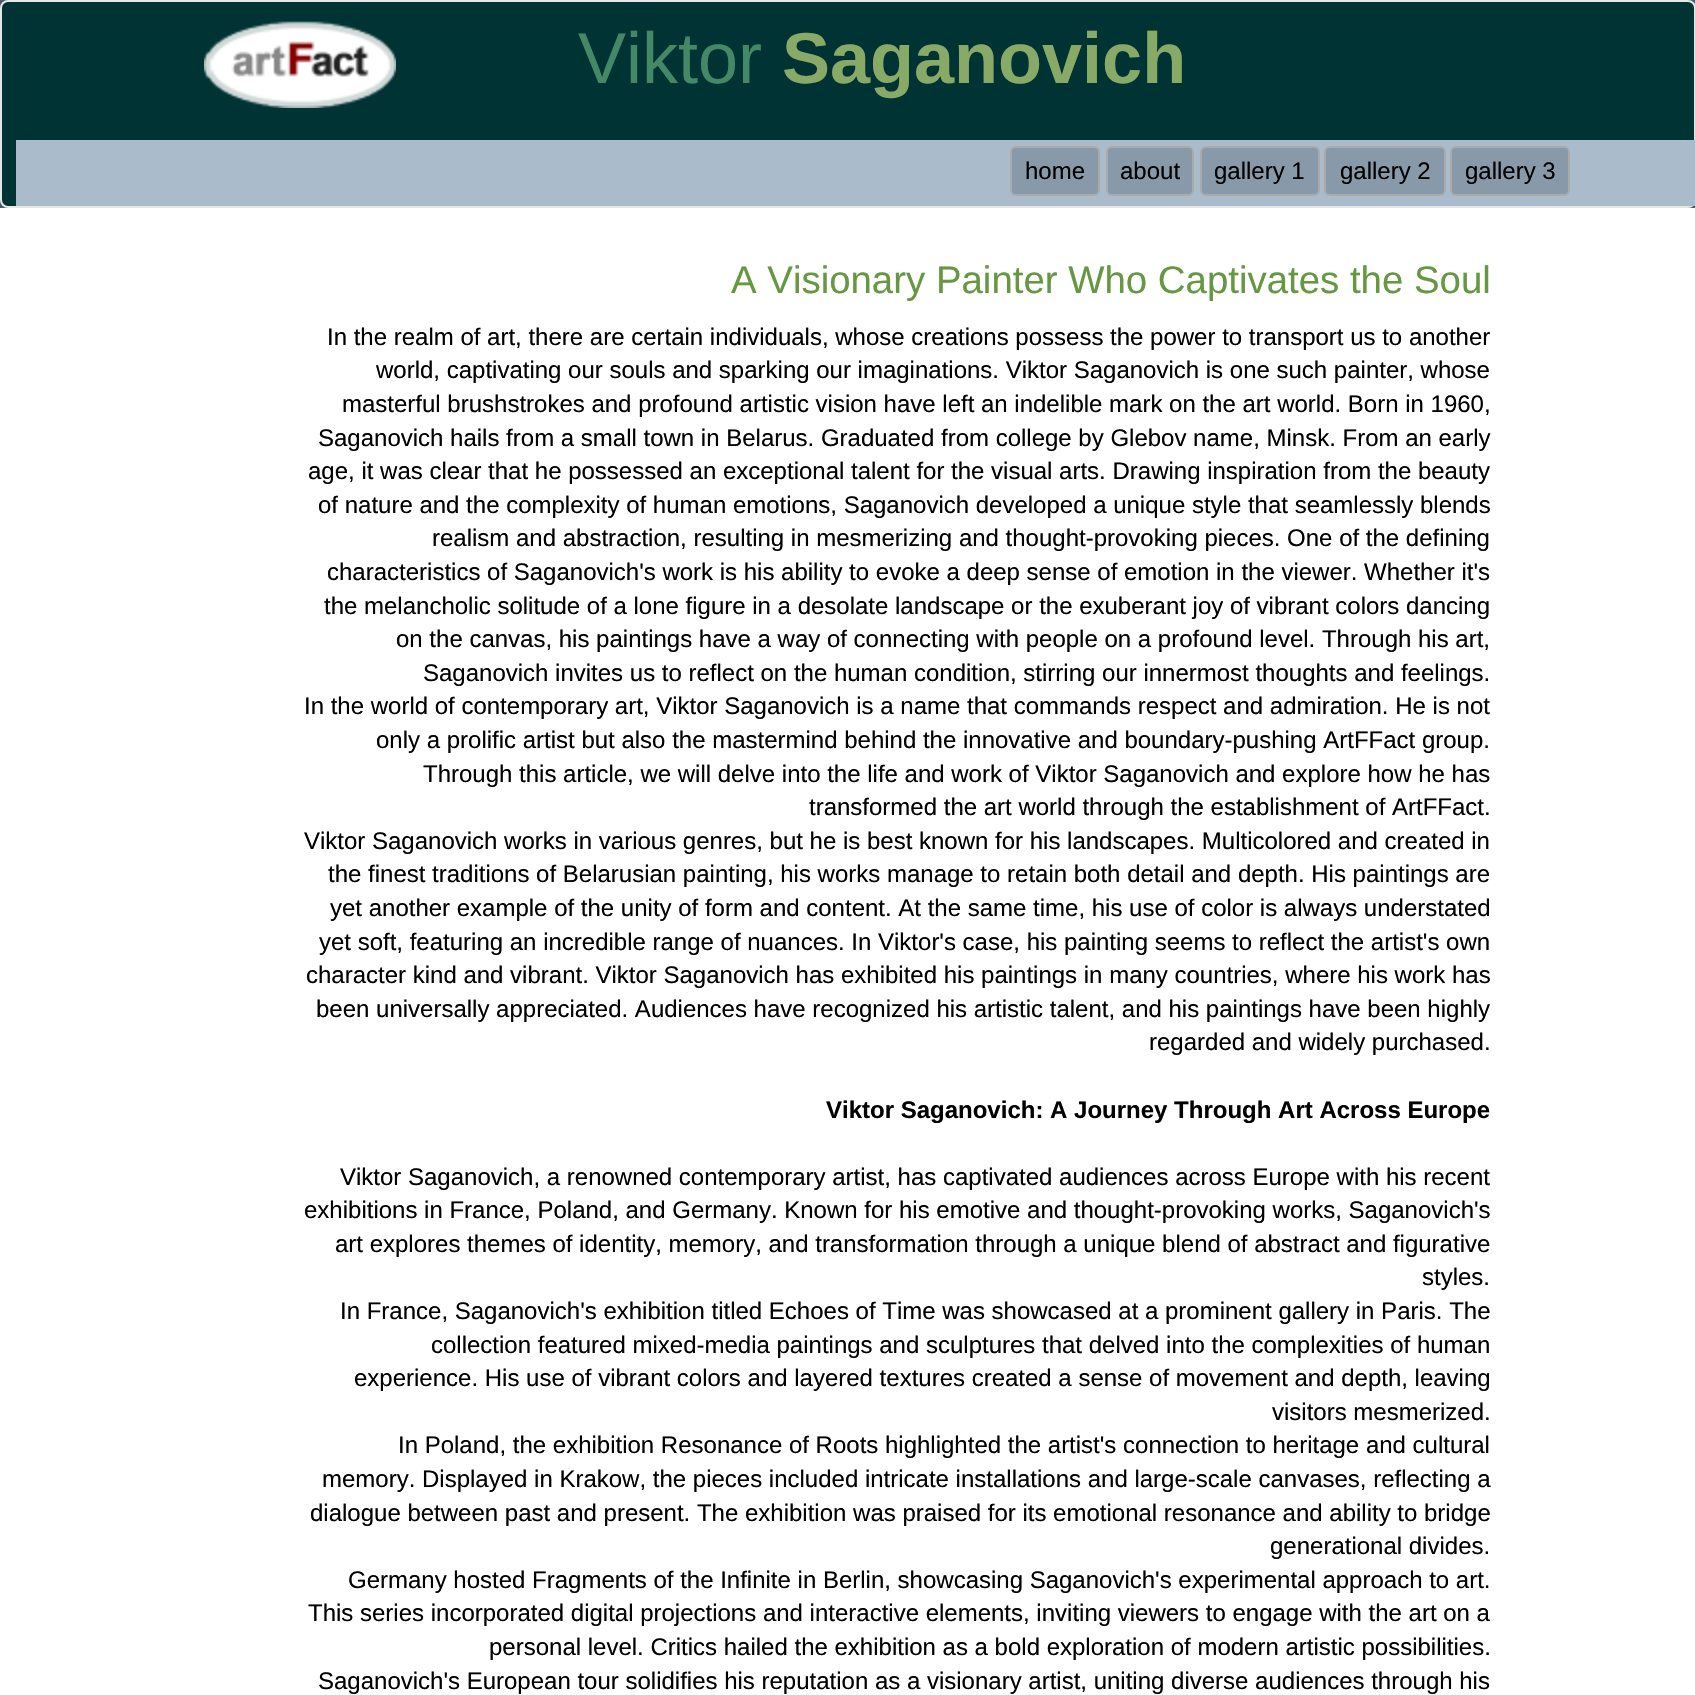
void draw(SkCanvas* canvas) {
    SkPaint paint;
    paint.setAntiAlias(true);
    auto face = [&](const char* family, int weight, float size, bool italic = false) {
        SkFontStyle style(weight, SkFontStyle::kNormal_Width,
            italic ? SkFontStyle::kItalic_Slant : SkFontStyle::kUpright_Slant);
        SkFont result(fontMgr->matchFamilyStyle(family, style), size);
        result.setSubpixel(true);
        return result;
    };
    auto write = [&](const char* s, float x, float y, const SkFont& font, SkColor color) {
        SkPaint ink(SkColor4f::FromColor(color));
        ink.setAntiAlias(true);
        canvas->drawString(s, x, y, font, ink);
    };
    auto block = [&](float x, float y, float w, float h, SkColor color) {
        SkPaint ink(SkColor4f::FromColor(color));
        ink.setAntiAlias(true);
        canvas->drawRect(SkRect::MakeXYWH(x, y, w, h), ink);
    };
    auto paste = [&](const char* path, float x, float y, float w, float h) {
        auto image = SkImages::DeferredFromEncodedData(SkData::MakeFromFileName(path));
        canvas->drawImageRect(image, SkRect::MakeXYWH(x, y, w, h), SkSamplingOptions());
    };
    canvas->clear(SkColorSetRGB(78, 88, 105));
    paint.setColor(SkColorSetRGB(0, 51, 51));
    canvas->drawRoundRect(SkRect::MakeXYWH(1, 1, 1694, 206), 7, 7, paint);
    paint.setStyle(SkPaint::kStroke_Style);
    paint.setStrokeWidth(2);
    paint.setColor(SkColorSetRGB(231, 231, 231));
    canvas->drawRoundRect(SkRect::MakeXYWH(1, 1, 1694, 206), 7, 7, paint);
    paste("pic1.png", 204, 21, 192, 87);
    auto kFont1 = face("Liberation Sans", 400, 72);
    write("Viktor", 578, 83, kFont1, SkColorSetRGB(68, 136, 102));
    auto kFont2 = face("Liberation Sans", 700, 72);
    write("Saganovich", 782, 83, kFont2, SkColorSetRGB(136, 170, 102));
    block(16, 140, 1679, 66, SkColorSetRGB(170, 187, 204));
    paint.setStyle(SkPaint::kFill_Style);
    paint.setColor(SkColorSetRGB(136, 153, 170));
    canvas->drawRoundRect(SkRect::MakeXYWH(1011, 147, 88, 48), 5, 5, paint);
    paint.setStyle(SkPaint::kStroke_Style);
    paint.setColor(SkColorSetRGB(170, 170, 170));
    canvas->drawRoundRect(SkRect::MakeXYWH(1011, 147, 88, 48), 5, 5, paint);
    auto kFont3 = face("Liberation Sans", 400, 24);
    write("home", 1025, 179, kFont3, SK_ColorBLACK);
    paint.setStyle(SkPaint::kFill_Style);
    paint.setColor(SkColorSetRGB(136, 153, 170));
    canvas->drawRoundRect(SkRect::MakeXYWH(1107, 147, 86, 48), 5, 5, paint);
    paint.setStyle(SkPaint::kStroke_Style);
    paint.setColor(SkColorSetRGB(170, 170, 170));
    canvas->drawRoundRect(SkRect::MakeXYWH(1107, 147, 86, 48), 5, 5, paint);
    write("about", 1120, 179, kFont3, SK_ColorBLACK);
    paint.setStyle(SkPaint::kFill_Style);
    paint.setColor(SkColorSetRGB(136, 153, 170));
    canvas->drawRoundRect(SkRect::MakeXYWH(1201, 147, 118, 48), 5, 5, paint);
    paint.setStyle(SkPaint::kStroke_Style);
    paint.setColor(SkColorSetRGB(170, 170, 170));
    canvas->drawRoundRect(SkRect::MakeXYWH(1201, 147, 118, 48), 5, 5, paint);
    write("gallery 1", 1214, 179, kFont3, SK_ColorBLACK);
    paint.setStyle(SkPaint::kFill_Style);
    paint.setColor(SkColorSetRGB(136, 153, 170));
    canvas->drawRoundRect(SkRect::MakeXYWH(1325, 147, 120, 48), 5, 5, paint);
    paint.setStyle(SkPaint::kStroke_Style);
    paint.setColor(SkColorSetRGB(170, 170, 170));
    canvas->drawRoundRect(SkRect::MakeXYWH(1325, 147, 120, 48), 5, 5, paint);
    write("gallery 2", 1340, 179, kFont3, SK_ColorBLACK);
    paint.setStyle(SkPaint::kFill_Style);
    paint.setColor(SkColorSetRGB(136, 153, 170));
    canvas->drawRoundRect(SkRect::MakeXYWH(1451, 147, 118, 48), 5, 5, paint);
    paint.setStyle(SkPaint::kStroke_Style);
    paint.setColor(SkColorSetRGB(170, 170, 170));
    canvas->drawRoundRect(SkRect::MakeXYWH(1451, 147, 118, 48), 5, 5, paint);
    write("gallery 3", 1465, 179, kFont3, SK_ColorBLACK);
    block(0, 208, 1695, 1487, SK_ColorWHITE);
    auto kFont4 = face("Liberation Sans", 400, 38.4f);
    write("A Visionary Painter Who Captivates the Soul", 731, 293, kFont4, SkColorSetRGB(102, 151, 66));
    write("In the realm of art, there are certain individuals, whose creations possess the power to transport us to another", 327, 345, kFont3, SK_ColorBLACK);
    write("world, captivating our souls and sparking our imaginations. Viktor Saganovich is one such painter, whose", 376, 378, kFont3, SK_ColorBLACK);
    write("masterful brushstrokes and profound artistic vision have left an indelible mark on the art world. Born in 1960,", 342, 412, kFont3, SK_ColorBLACK);
    write("Saganovich hails from a small town in Belarus. Graduated from college by Glebov name, Minsk. From an early", 318, 446, kFont3, SK_ColorBLACK);
    write("age, it was clear that he possessed an exceptional talent for the visual arts. Drawing inspiration from the beauty", 308, 479, kFont3, SK_ColorBLACK);
    write("of nature and the complexity of human emotions, Saganovich developed a unique style that seamlessly blends", 318, 513, kFont3, SK_ColorBLACK);
    write("realism and abstraction, resulting in mesmerizing and thought-provoking pieces. One of the defining", 432, 546, kFont3, SK_ColorBLACK);
    write("characteristics of Saganovich's work is his ability to evoke a deep sense of emotion in the viewer. Whether it's", 327, 580, kFont3, SK_ColorBLACK);
    write("the melancholic solitude of a lone figure in a desolate landscape or the exuberant joy of vibrant colors dancing", 324, 614, kFont3, SK_ColorBLACK);
    write("on the canvas, his paintings have a way of connecting with people on a profound level. Through his art,", 396, 647, kFont3, SK_ColorBLACK);
    write("Saganovich invites us to reflect on the human condition, stirring our innermost thoughts and feelings.", 423, 681, kFont3, SK_ColorBLACK);
    write("In the world of contemporary art, Viktor Saganovich is a name that commands respect and admiration. He is not", 304, 714, kFont3, SK_ColorBLACK);
    write("only a prolific artist but also the mastermind behind the innovative and boundary-pushing ArtFFact group.", 376, 748, kFont3, SK_ColorBLACK);
    write("Through this article, we will delve into the life and work of Viktor Saganovich and explore how he has", 423, 782, kFont3, SK_ColorBLACK);
    write("transformed the art world through the establishment of ArtFFact.", 809, 815, kFont3, SK_ColorBLACK);
    write("Viktor Saganovich works in various genres, but he is best known for his landscapes. Multicolored and created in", 304, 849, kFont3, SK_ColorBLACK);
    write("the finest traditions of Belarusian painting, his works manage to retain both detail and depth. His paintings are", 328, 882, kFont3, SK_ColorBLACK);
    write("yet another example of the unity of form and content. At the same time, his use of color is always understated", 330, 916, kFont3, SK_ColorBLACK);
    write("yet soft, featuring an incredible range of nuances. In Viktor's case, his painting seems to reflect the artist's own", 319, 950, kFont3, SK_ColorBLACK);
    write("character kind and vibrant. Viktor Saganovich has exhibited his paintings in many countries, where his work has", 306, 983, kFont3, SK_ColorBLACK);
    write("been universally appreciated. Audiences have recognized his artistic talent, and his paintings have been highly", 316, 1017, kFont3, SK_ColorBLACK);
    write("regarded and widely purchased.", 1149, 1050, kFont3, SK_ColorBLACK);
    auto kFont5 = face("Liberation Sans", 700, 24);
    write("Viktor Saganovich: A Journey Through Art Across Europe", 826, 1118, kFont5, SK_ColorBLACK);
    write("Viktor Saganovich, a renowned contemporary artist, has captivated audiences across Europe with his recent", 340, 1185, kFont3, SK_ColorBLACK);
    write("exhibitions in France, Poland, and Germany. Known for his emotive and thought-provoking works, Saganovich's", 304, 1218, kFont3, SK_ColorBLACK);
    write("art explores themes of identity, memory, and transformation through a unique blend of abstract and figurative", 335, 1252, kFont3, SK_ColorBLACK);
    write("styles.", 1422, 1285, kFont3, SK_ColorBLACK);
    write("In France, Saganovich's exhibition titled Echoes of Time was showcased at a prominent gallery in Paris. The", 340, 1319, kFont3, SK_ColorBLACK);
    write("collection featured mixed-media paintings and sculptures that delved into the complexities of human", 431, 1353, kFont3, SK_ColorBLACK);
    write("experience. His use of vibrant colors and layered textures created a sense of movement and depth, leaving", 354, 1386, kFont3, SK_ColorBLACK);
    write("visitors mesmerized.", 1272, 1420, kFont3, SK_ColorBLACK);
    write("In Poland, the exhibition Resonance of Roots highlighted the artist's connection to heritage and cultural", 398, 1453, kFont3, SK_ColorBLACK);
    write("memory. Displayed in Krakow, the pieces included intricate installations and large-scale canvases, reflecting a", 322, 1487, kFont3, SK_ColorBLACK);
    write("dialogue between past and present. The exhibition was praised for its emotional resonance and ability to bridge", 310, 1521, kFont3, SK_ColorBLACK);
    write("generational divides.", 1270, 1554, kFont3, SK_ColorBLACK);
    write("Germany hosted Fragments of the Infinite in Berlin, showcasing Saganovich's experimental approach to art.", 348, 1588, kFont3, SK_ColorBLACK);
    write("This series incorporated digital projections and interactive elements, inviting viewers to engage with the art on a", 308, 1621, kFont3, SK_ColorBLACK);
    write("personal level. Critics hailed the exhibition as a bold exploration of modern artistic possibilities.", 489, 1655, kFont3, SK_ColorBLACK);
    write("Saganovich's European tour solidifies his reputation as a visionary artist, uniting diverse audiences through his", 318, 1689, kFont3, SK_ColorBLACK);
}
